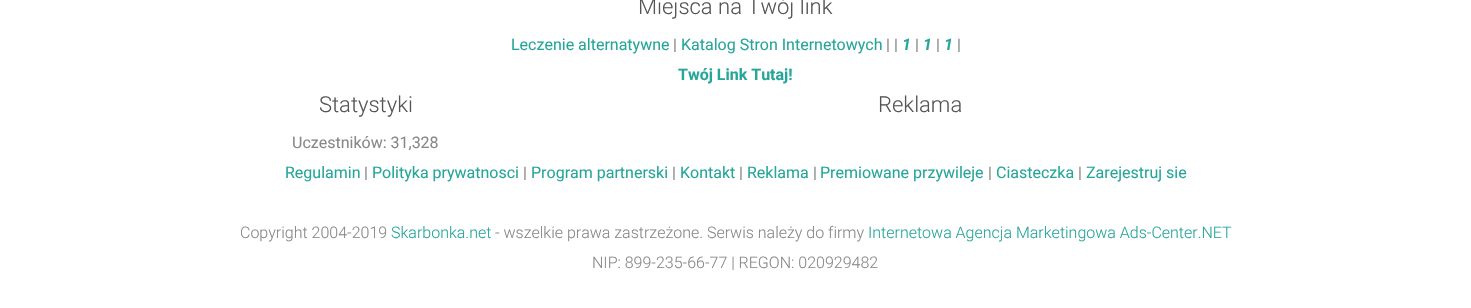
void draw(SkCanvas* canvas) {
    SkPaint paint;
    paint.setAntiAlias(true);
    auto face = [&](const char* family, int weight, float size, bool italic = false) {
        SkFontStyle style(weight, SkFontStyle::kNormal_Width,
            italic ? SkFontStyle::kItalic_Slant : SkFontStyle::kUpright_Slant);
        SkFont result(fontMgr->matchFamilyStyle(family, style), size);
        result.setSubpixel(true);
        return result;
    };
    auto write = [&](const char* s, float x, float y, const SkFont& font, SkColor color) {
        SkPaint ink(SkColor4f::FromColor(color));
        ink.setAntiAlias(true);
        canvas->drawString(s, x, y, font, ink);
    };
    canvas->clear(SK_ColorWHITE);
    auto kFont1 = face("Roboto", 300, 22);
    write("Miejsca na Twój link", 638, 14, kFont1, SkColorSetRGB(85, 85, 85));
    auto kFont2 = face("Roboto", 400, 16);
    write("Leczenie alternatywne", 511, 50, kFont2, SkColorSetRGB(38, 166, 154));
    write("|", 673, 50, kFont2, SkColorSetRGB(136, 136, 136));
    write("Katalog Stron Internetowych", 681, 50, kFont2, SkColorSetRGB(38, 166, 154));
    write("| |", 886, 50, kFont2, SkColorSetRGB(136, 136, 136));
    auto kFont3 = face("Roboto", 700, 16, true);
    write("1", 902, 50, kFont3, SkColorSetRGB(38, 166, 154));
    write("|", 915, 50, kFont2, SkColorSetRGB(136, 136, 136));
    write("1", 923, 50, kFont3, SkColorSetRGB(38, 166, 154));
    write("|", 936, 50, kFont2, SkColorSetRGB(136, 136, 136));
    write("1", 944, 50, kFont3, SkColorSetRGB(38, 166, 154));
    write("|", 957, 50, kFont2, SkColorSetRGB(136, 136, 136));
    auto kFont4 = face("Roboto", 700, 16);
    write("Twój Link Tutaj!", 678, 80, kFont4, SkColorSetRGB(38, 166, 154));
    write("Statystyki", 319, 112, kFont1, SkColorSetRGB(85, 85, 85));
    write("Uczestników: 31,328", 292, 148, kFont2, SkColorSetRGB(136, 136, 136));
    write("Reklama", 878, 112, kFont1, SkColorSetRGB(85, 85, 85));
    write("Regulamin", 285, 178, kFont2, SkColorSetRGB(38, 166, 154));
    write("|", 364, 178, kFont2, SkColorSetRGB(136, 136, 136));
    write("Polityka prywatnosci", 372, 178, kFont2, SkColorSetRGB(38, 166, 154));
    write("|", 523, 178, kFont2, SkColorSetRGB(136, 136, 136));
    write("Program partnerski", 531, 178, kFont2, SkColorSetRGB(38, 166, 154));
    write("|", 672, 178, kFont2, SkColorSetRGB(136, 136, 136));
    write("Kontakt", 680, 178, kFont2, SkColorSetRGB(38, 166, 154));
    write("|", 739, 178, kFont2, SkColorSetRGB(136, 136, 136));
    write("Reklama", 747, 178, kFont2, SkColorSetRGB(38, 166, 154));
    write("|", 813, 178, kFont2, SkColorSetRGB(136, 136, 136));
    write("Premiowane przywileje", 820, 178, kFont2, SkColorSetRGB(38, 166, 154));
    write("|", 988, 178, kFont2, SkColorSetRGB(136, 136, 136));
    write("Ciasteczka", 996, 178, kFont2, SkColorSetRGB(38, 166, 154));
    write("|", 1078, 178, kFont2, SkColorSetRGB(136, 136, 136));
    write("Zarejestruj sie", 1086, 178, kFont2, SkColorSetRGB(38, 166, 154));
    auto kFont5 = face("Roboto", 300, 16);
    write("Copyright 2004-2019", 240, 238, kFont5, SkColorSetRGB(136, 136, 136));
    write("Skarbonka.net", 391, 238, kFont5, SkColorSetRGB(38, 166, 154));
    write("- wszelkie prawa zastrzeżone. Serwis należy do firmy", 495, 238, kFont5, SkColorSetRGB(136, 136, 136));
    write("Internetowa Agencja Marketingowa Ads-Center.NET", 868, 238, kFont5, SkColorSetRGB(38, 166, 154));
    write("NIP: 899-235-66-77 | REGON: 020929482", 592, 268, kFont5, SkColorSetRGB(136, 136, 136));
}
